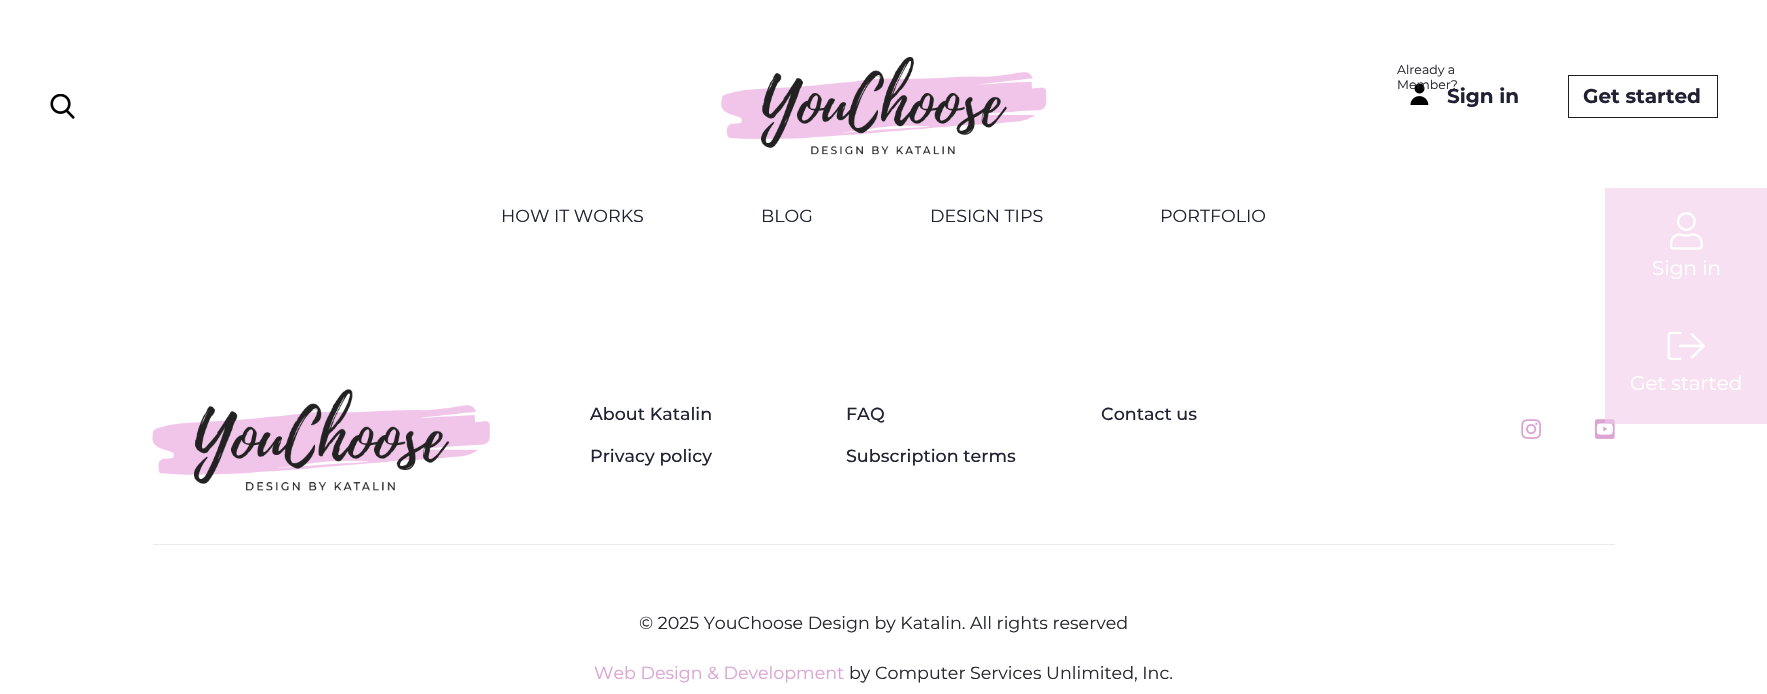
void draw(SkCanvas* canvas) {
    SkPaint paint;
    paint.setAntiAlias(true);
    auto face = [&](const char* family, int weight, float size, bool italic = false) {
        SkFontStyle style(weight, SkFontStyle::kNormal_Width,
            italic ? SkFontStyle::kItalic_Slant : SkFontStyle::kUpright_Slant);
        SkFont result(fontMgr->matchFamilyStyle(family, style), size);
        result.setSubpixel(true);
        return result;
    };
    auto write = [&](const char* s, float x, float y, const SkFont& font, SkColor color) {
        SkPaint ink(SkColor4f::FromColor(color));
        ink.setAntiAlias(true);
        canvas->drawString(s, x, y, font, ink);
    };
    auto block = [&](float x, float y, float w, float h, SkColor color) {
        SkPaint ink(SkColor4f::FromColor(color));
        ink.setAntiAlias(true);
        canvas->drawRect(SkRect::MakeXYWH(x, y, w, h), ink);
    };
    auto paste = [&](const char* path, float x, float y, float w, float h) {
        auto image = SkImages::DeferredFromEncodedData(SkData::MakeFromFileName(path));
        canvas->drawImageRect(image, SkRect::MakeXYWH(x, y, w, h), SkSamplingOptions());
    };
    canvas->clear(SK_ColorWHITE);
    paste("pic1.png", 50, 94, 25, 25);
    paste("pic2.png", 721, 57, 326, 98);
    auto kFont1 = face("Montserrat", 400, 12.5f);
    write("Already a", 1397, 74, kFont1, SkColorSetRGB(39, 40, 44));
    paste("pic3.png", 1410, 84, 19, 21);
    write("Member?", 1397, 89, kFont1, SkColorSetRGB(39, 40, 44));
    auto kFont2 = face("Montserrat", 700, 20);
    write("Sign in", 1447, 103, kFont2, SkColorSetRGB(32, 33, 51));
    paint.setStyle(SkPaint::kStroke_Style);
    paint.setStrokeWidth(1);
    paint.setColor(SkColorSetRGB(31, 31, 31));
    canvas->drawRect(SkRect::MakeXYWH(1568.5f, 75.5f, 149, 42), paint);
    write("Get started", 1583, 103, kFont2, SkColorSetRGB(32, 33, 51));
    auto kFont3 = face("Montserrat", 400, 17.5f);
    write("HOW IT WORKS", 501, 222, kFont3, SkColorSetRGB(32, 33, 51));
    write("BLOG", 761, 222, kFont3, SkColorSetRGB(32, 33, 51));
    write("DESIGN TIPS", 930, 222, kFont3, SkColorSetRGB(32, 33, 51));
    write("PORTFOLIO", 1160, 222, kFont3, SkColorSetRGB(32, 33, 51));
    paste("pic8.png", 1595, 419, 20, 20);
    block(1605, 188, 162, 236, SkColorSetARGB(153, 240, 204, 233));
    paste("pic4.png", 1670, 212, 33, 38);
    auto kFont4 = face("Montserrat", 400, 20);
    write("Sign in", 1652, 275, kFont4, SK_ColorWHITE);
    paste("pic5.png", 1667, 331, 38, 29);
    write("Get started", 1630, 390, kFont4, SK_ColorWHITE);
    paste("pic6.png", 152, 389, 338, 102);
    auto kFont5 = face("Montserrat", 500, 17.5f);
    write("About Katalin", 590, 420, kFont5, SkColorSetRGB(32, 33, 51));
    write("FAQ", 846, 420, kFont5, SkColorSetRGB(32, 33, 51));
    write("Contact us", 1101, 420, kFont5, SkColorSetRGB(32, 33, 51));
    write("Privacy policy", 590, 462, kFont5, SkColorSetRGB(32, 33, 51));
    write("Subscription terms", 846, 462, kFont5, SkColorSetRGB(32, 33, 51));
    paste("pic7.png", 1521, 419, 20, 20);
    block(153, 544, 1462, 1, SkColorSetRGB(234, 234, 234));
    write("© 2025 YouChoose Design by Katalin. All rights reserved", 639, 629, kFont3, SkColorSetRGB(39, 40, 44));
    write("Web Design & Development", 594, 679, kFont3, SkColorSetRGB(219, 164, 210));
    write("by Computer Services Unlimited, Inc.", 849, 679, kFont3, SkColorSetRGB(39, 40, 44));
}
